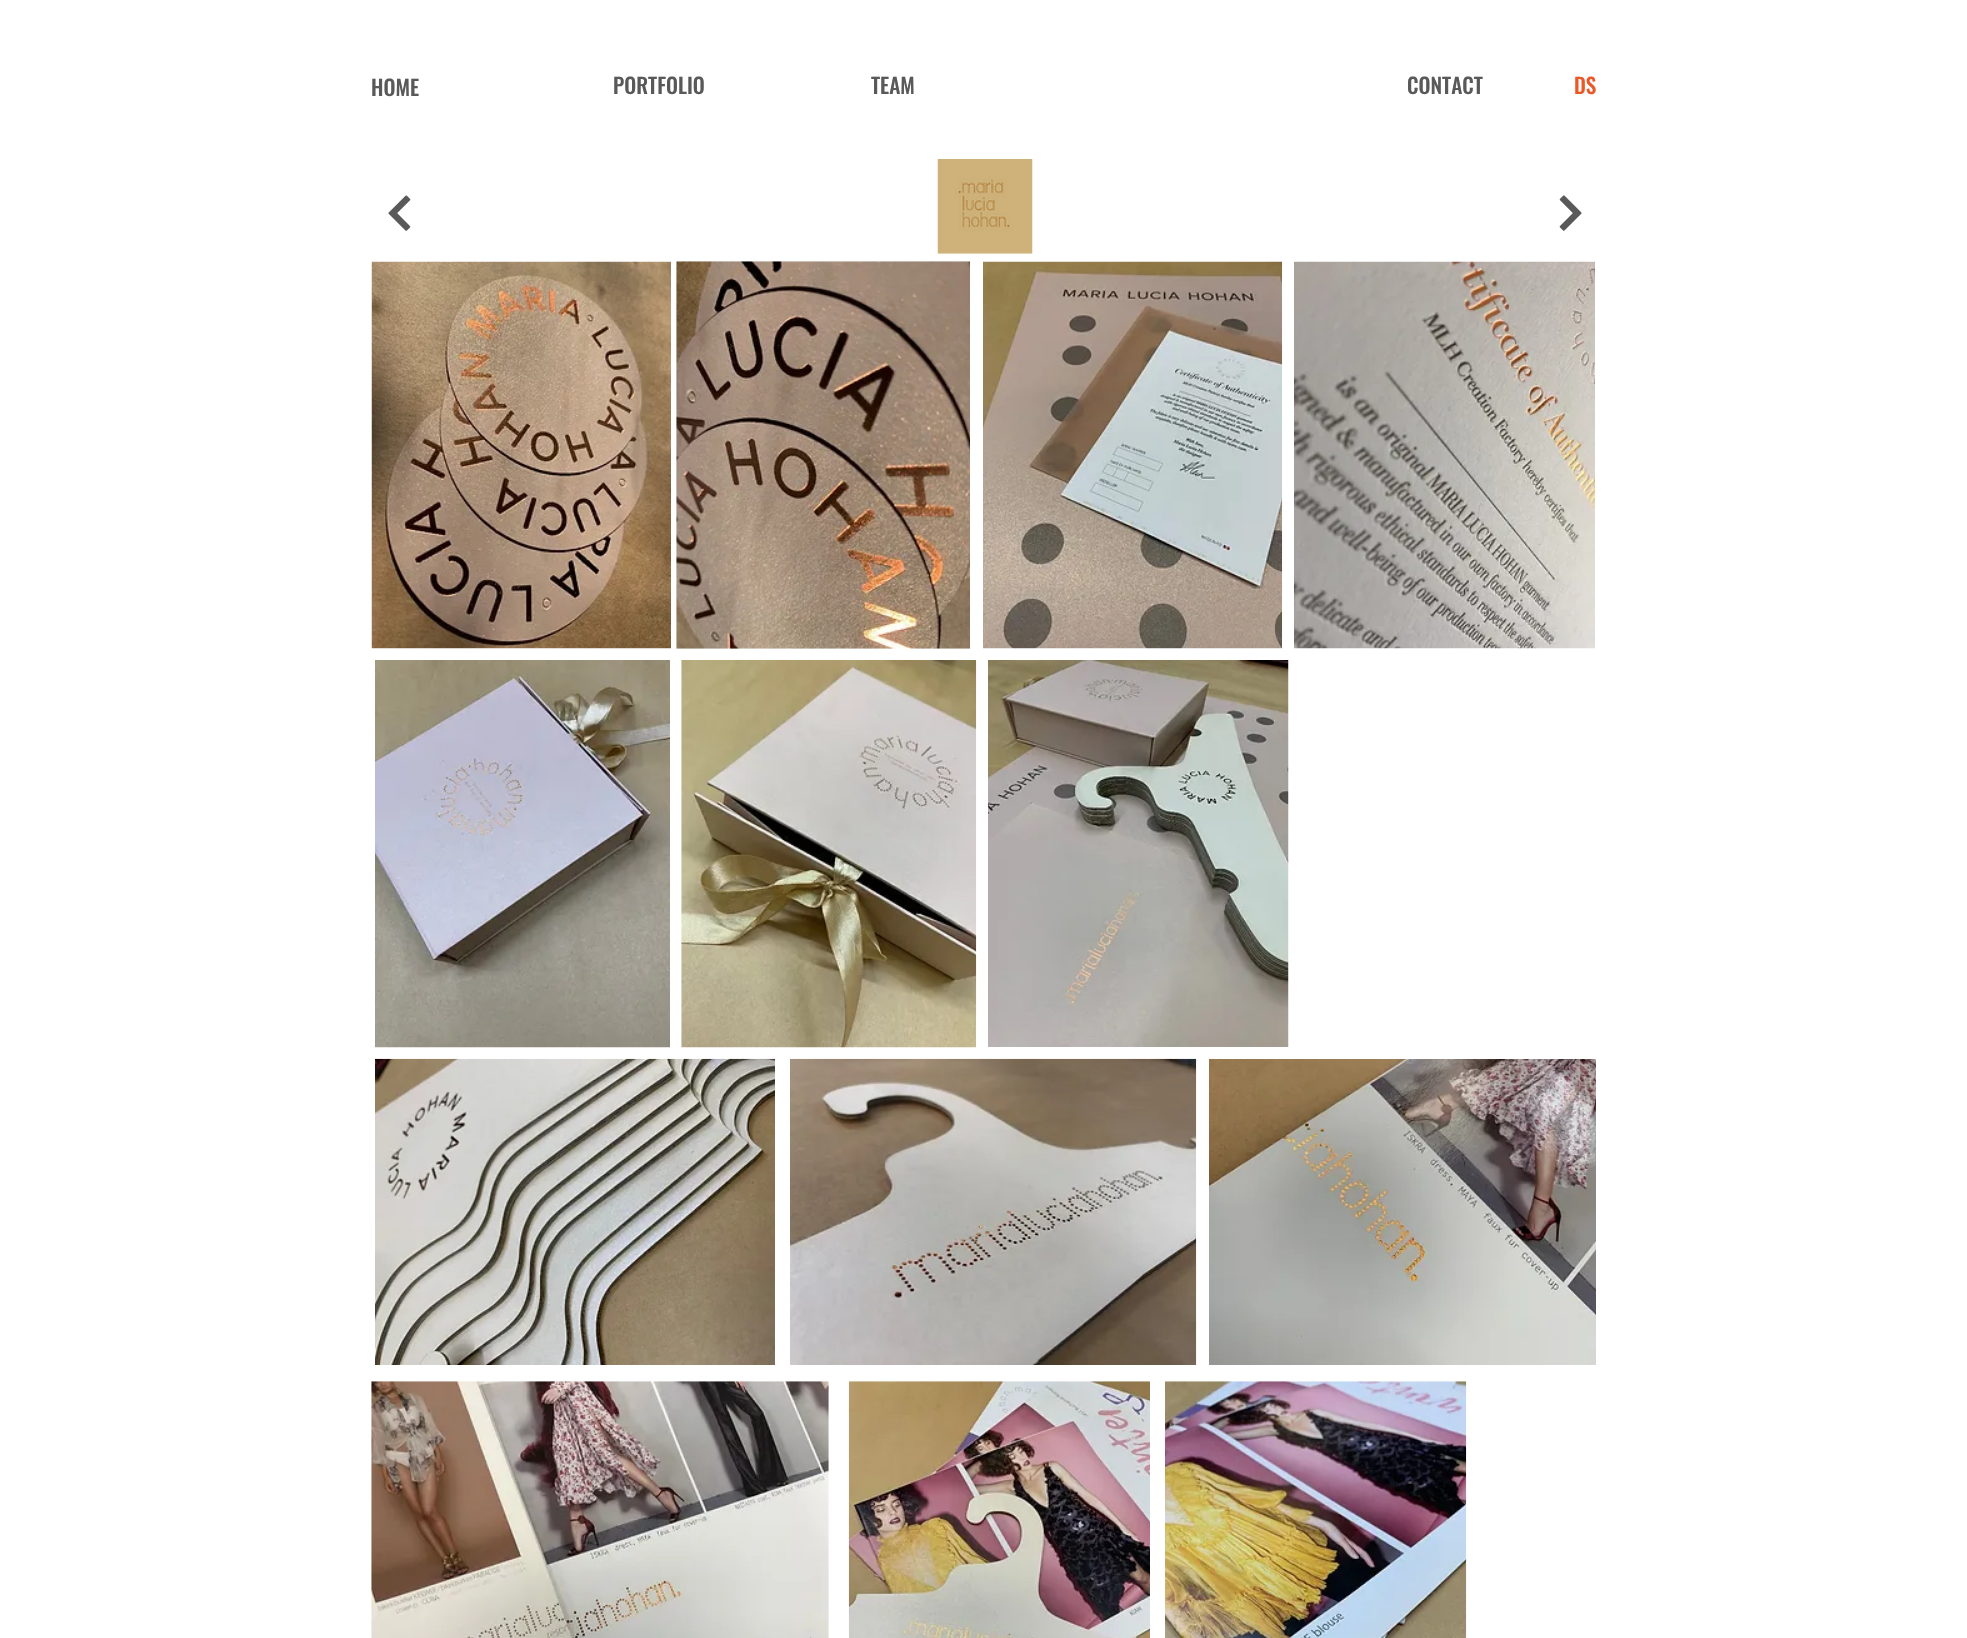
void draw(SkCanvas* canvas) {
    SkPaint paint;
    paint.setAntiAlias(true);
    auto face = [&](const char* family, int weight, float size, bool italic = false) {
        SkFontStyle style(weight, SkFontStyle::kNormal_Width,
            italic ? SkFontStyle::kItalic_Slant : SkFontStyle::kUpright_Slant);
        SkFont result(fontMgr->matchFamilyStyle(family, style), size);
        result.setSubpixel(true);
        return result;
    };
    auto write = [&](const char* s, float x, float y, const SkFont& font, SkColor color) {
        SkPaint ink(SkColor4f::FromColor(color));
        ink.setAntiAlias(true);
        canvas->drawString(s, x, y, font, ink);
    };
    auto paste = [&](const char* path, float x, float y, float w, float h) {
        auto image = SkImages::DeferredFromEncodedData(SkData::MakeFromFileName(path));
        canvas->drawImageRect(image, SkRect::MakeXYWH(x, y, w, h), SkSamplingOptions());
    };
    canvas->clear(SK_ColorWHITE);
    auto kFont1 = face("Oswald", 500, 21.25f);
    write("HOME", 371, 96, kFont1, SkColorSetRGB(89, 89, 89));
    write("PORTFOLIO", 613, 94, kFont1, SkColorSetRGB(89, 89, 89));
    write("TEAM", 871, 94, kFont1, SkColorSetRGB(89, 89, 89));
    write("CONTACT", 1407, 94, kFont1, SkColorSetRGB(89, 89, 89));
    write("DS", 1574, 94, kFont1, SkColorSetRGB(237, 88, 41));
    paste("pic1.png", 388, 195, 23, 36);
    paste("pic2.png", 937, 159, 96, 95);
    paste("pic3.png", 1559, 195, 23, 36);
    paste("pic4.png", 371, 261, 300, 388);
    paste("pic5.png", 676, 261, 294, 388);
    paste("pic6.png", 983, 261, 300, 388);
    paste("pic7.png", 1294, 261, 301, 388);
    paste("pic8.png", 375, 660, 295, 388);
    paste("pic9.png", 681, 660, 296, 388);
    paste("pic10.png", 988, 660, 301, 387);
    paste("pic11.png", 375, 1058, 400, 307);
    paste("pic12.png", 790, 1058, 407, 307);
    paste("pic13.png", 1209, 1059, 387, 306);
    paste("pic14.png", 371, 1381, 458, 257);
    paste("pic15.png", 848, 1381, 302, 257);
    paste("pic16.png", 1165, 1381, 302, 257);
}
